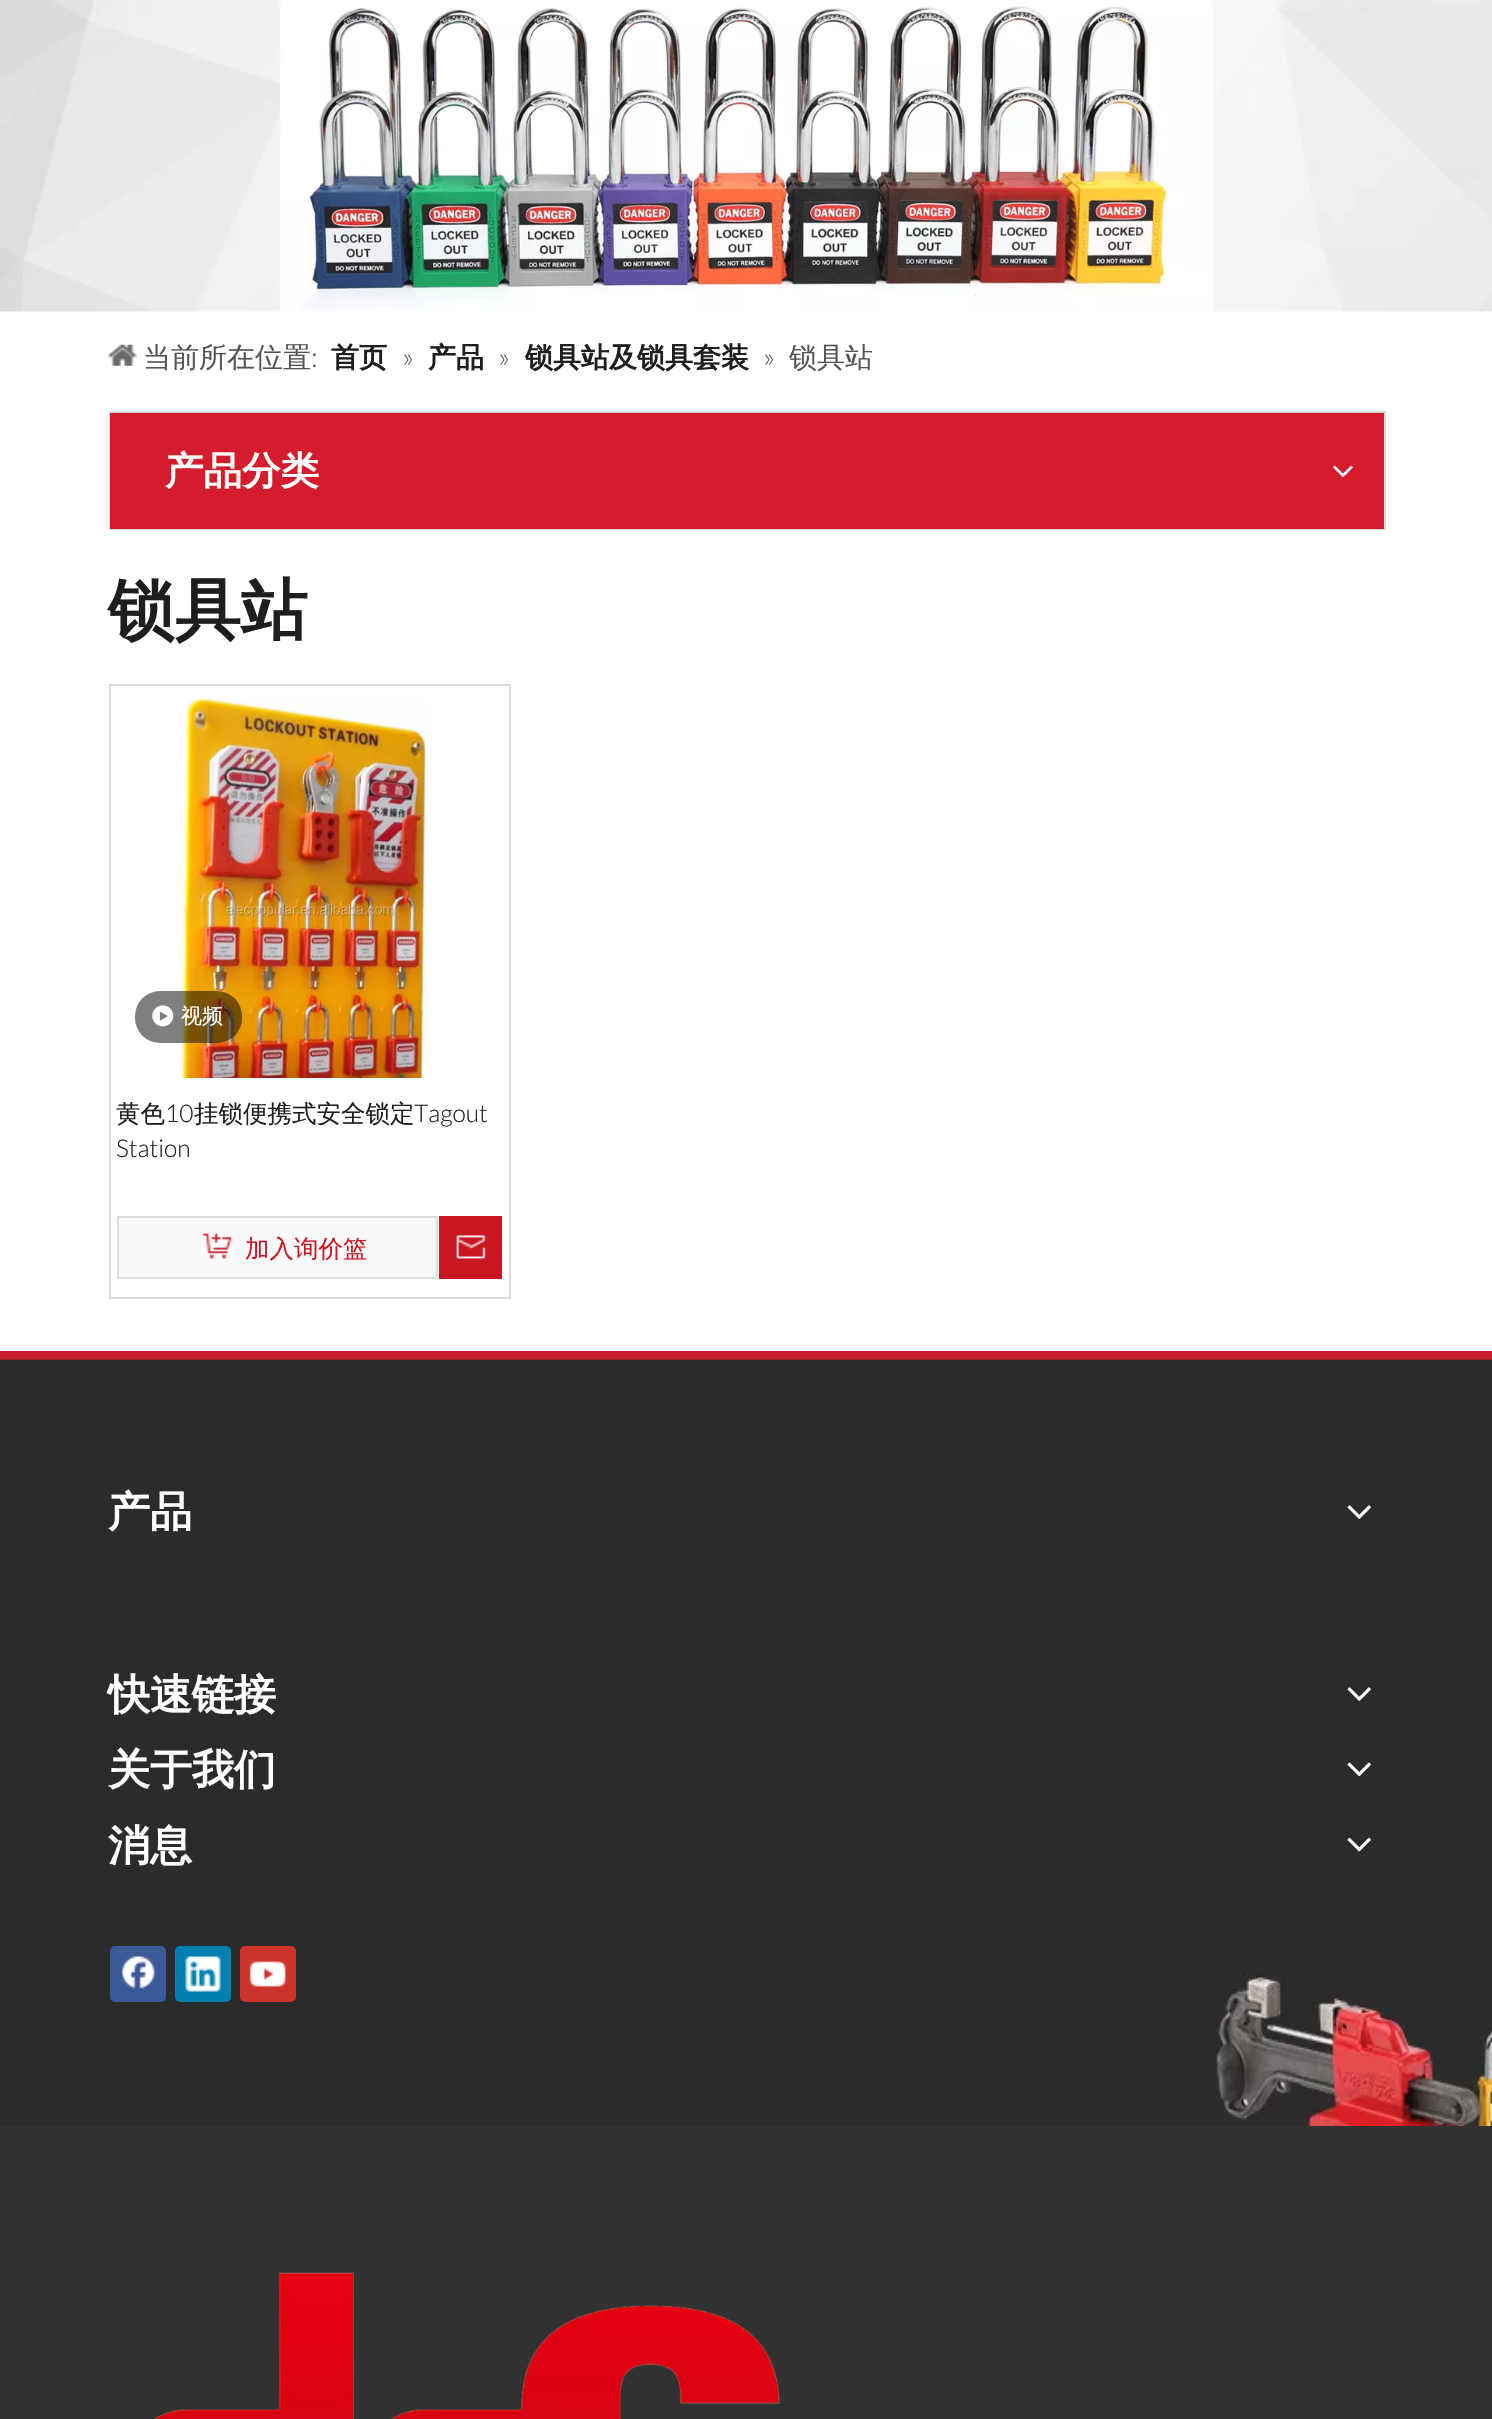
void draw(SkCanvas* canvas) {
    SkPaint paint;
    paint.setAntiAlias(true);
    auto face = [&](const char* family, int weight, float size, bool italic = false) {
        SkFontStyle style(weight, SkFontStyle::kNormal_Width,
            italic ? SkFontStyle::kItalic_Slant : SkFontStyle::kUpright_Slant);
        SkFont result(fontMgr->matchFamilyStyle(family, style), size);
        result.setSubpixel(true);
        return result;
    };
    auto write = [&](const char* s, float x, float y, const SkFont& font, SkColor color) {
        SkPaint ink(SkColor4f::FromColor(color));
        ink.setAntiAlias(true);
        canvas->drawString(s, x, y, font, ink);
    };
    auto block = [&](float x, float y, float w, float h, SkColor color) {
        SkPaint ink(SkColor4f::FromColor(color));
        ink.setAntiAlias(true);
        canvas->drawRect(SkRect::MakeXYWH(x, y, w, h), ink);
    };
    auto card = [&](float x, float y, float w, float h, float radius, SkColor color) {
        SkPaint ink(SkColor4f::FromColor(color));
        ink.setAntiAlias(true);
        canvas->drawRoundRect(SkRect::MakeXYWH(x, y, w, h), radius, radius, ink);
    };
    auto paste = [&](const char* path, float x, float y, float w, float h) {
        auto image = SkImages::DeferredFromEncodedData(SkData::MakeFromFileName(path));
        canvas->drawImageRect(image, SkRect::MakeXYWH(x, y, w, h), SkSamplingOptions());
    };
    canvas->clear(SK_ColorWHITE);
    paste("pic1.png", 0, 0, 1492, 312);
    paste("pic2.png", 108, 344, 29, 22);
    auto kFont1 = face("WenQuanYi Zen Hei", 500, 28);
    write("当前所在位置", 143, 367, kFont1, SkColorSetRGB(84, 84, 84));
    auto kFont2 = face("Lato", 300, 28);
    write(":", 311, 367, kFont2, SkColorSetRGB(84, 84, 84));
    auto kFont3 = face("WenQuanYi Zen Hei", 700, 28);
    write("首页", 331, 367, kFont3, SkColorSetRGB(30, 30, 30));
    write("»", 402, 367, kFont2, SkColorSetRGB(84, 84, 84));
    write("产品", 428, 367, kFont3, SkColorSetRGB(30, 30, 30));
    write("»", 498, 367, kFont2, SkColorSetRGB(84, 84, 84));
    write("锁具站及锁具套装", 525, 367, kFont3, SkColorSetRGB(30, 30, 30));
    write("»", 763, 367, kFont2, SkColorSetRGB(84, 84, 84));
    write("锁具站", 789, 367, kFont1, SkColorSetRGB(84, 84, 84));
    paint.setStyle(SkPaint::kStroke_Style);
    paint.setStrokeWidth(2);
    paint.setColor(SkColorSetRGB(214, 214, 214));
    canvas->drawRect(SkRect::MakeXYWH(110, 412, 1275, 117), paint);
    block(110, 413, 1274, 116, SkColorSetRGB(213, 28, 44));
    auto kFont4 = face("WenQuanYi Zen Hei", 700, 38.5f);
    write("产品分类", 165, 484, kFont4, SK_ColorWHITE);
    paste("pic3.png", 1333, 465, 20, 12);
    auto kFont5 = face("WenQuanYi Zen Hei", 700, 66.5f);
    write("锁具站", 108, 633, kFont5, SkColorSetRGB(30, 30, 30));
    paint.setColor(SkColorSetRGB(220, 220, 220));
    canvas->drawRect(SkRect::MakeXYWH(110, 685, 400, 613), paint);
    paste("pic4.png", 181, 697, 248, 381);
    card(135, 991, 107, 52, 25, SkColorSetARGB(128, 0, 0, 0));
    paste("pic5.png", 152, 1005, 22, 22);
    auto kFont6 = face("WenQuanYi Zen Hei", 500, 21);
    write("视频", 181, 1023, kFont6, SK_ColorWHITE);
    auto kFont7 = face("WenQuanYi Zen Hei", 500, 24.5f);
    write("黄色", 116, 1122, kFont7, SkColorSetRGB(30, 30, 30));
    auto kFont8 = face("Lato", 300, 24.5f);
    write("10", 165, 1122, kFont8, SkColorSetRGB(30, 30, 30));
    write("挂锁便携式安全锁定", 194, 1122, kFont7, SkColorSetRGB(30, 30, 30));
    write("Tagout", 414, 1122, kFont8, SkColorSetRGB(30, 30, 30));
    write("Station", 116, 1157, kFont8, SkColorSetRGB(30, 30, 30));
    paint.setStyle(SkPaint::kFill_Style);
    paint.setColor(SkColorSetRGB(250, 250, 250));
    canvas->drawRect(SkRect::MakeXYWH(118, 1217, 319, 61), paint);
    paint.setStyle(SkPaint::kStroke_Style);
    paint.setColor(SkColorSetRGB(220, 220, 220));
    canvas->drawRect(SkRect::MakeXYWH(118, 1217, 319, 61), paint);
    paste("pic6.png", 202, 1233, 30, 26);
    write("加入询价篮", 245, 1257, kFont7, SkColorSetRGB(200, 22, 35));
    block(439, 1216, 63, 63, SkColorSetRGB(200, 22, 35));
    paste("pic7.png", 456, 1235, 30, 24);
    block(0, 1351, 1492, 9, SkColorSetRGB(196, 30, 47));
    paste("pic8.png", 0, 1359, 1492, 767);
    auto kFont9 = face("WenQuanYi Zen Hei", 700, 42);
    write("产品", 108, 1526, kFont9, SK_ColorWHITE);
    paste("pic9.png", 1347, 1505, 24, 14);
    write("快速链接", 108, 1709, kFont9, SK_ColorWHITE);
    paste("pic9.png", 1347, 1687, 24, 14);
    write("关于我们", 108, 1784, kFont9, SK_ColorWHITE);
    paste("pic10.png", 1347, 1762, 24, 15);
    write("消息", 108, 1860, kFont9, SK_ColorWHITE);
    paste("pic11.png", 1347, 1837, 24, 15);
    card(110, 1946, 56, 56, 5, SkColorSetRGB(59, 89, 152));
    paste("pic12.png", 122, 1956, 33, 33);
    card(175, 1946, 56, 56, 5, SkColorSetRGB(0, 127, 177));
    paste("pic13.png", 185, 1956, 36, 36);
    card(240, 1946, 56, 56, 5, SkColorSetRGB(205, 51, 45));
    paste("pic14.png", 249, 1961, 37, 26);
    block(0, 2126, 1492, 293, SkColorSetRGB(50, 50, 50));
    paste("pic15.png", 154, 2272, 626, 147);
}
